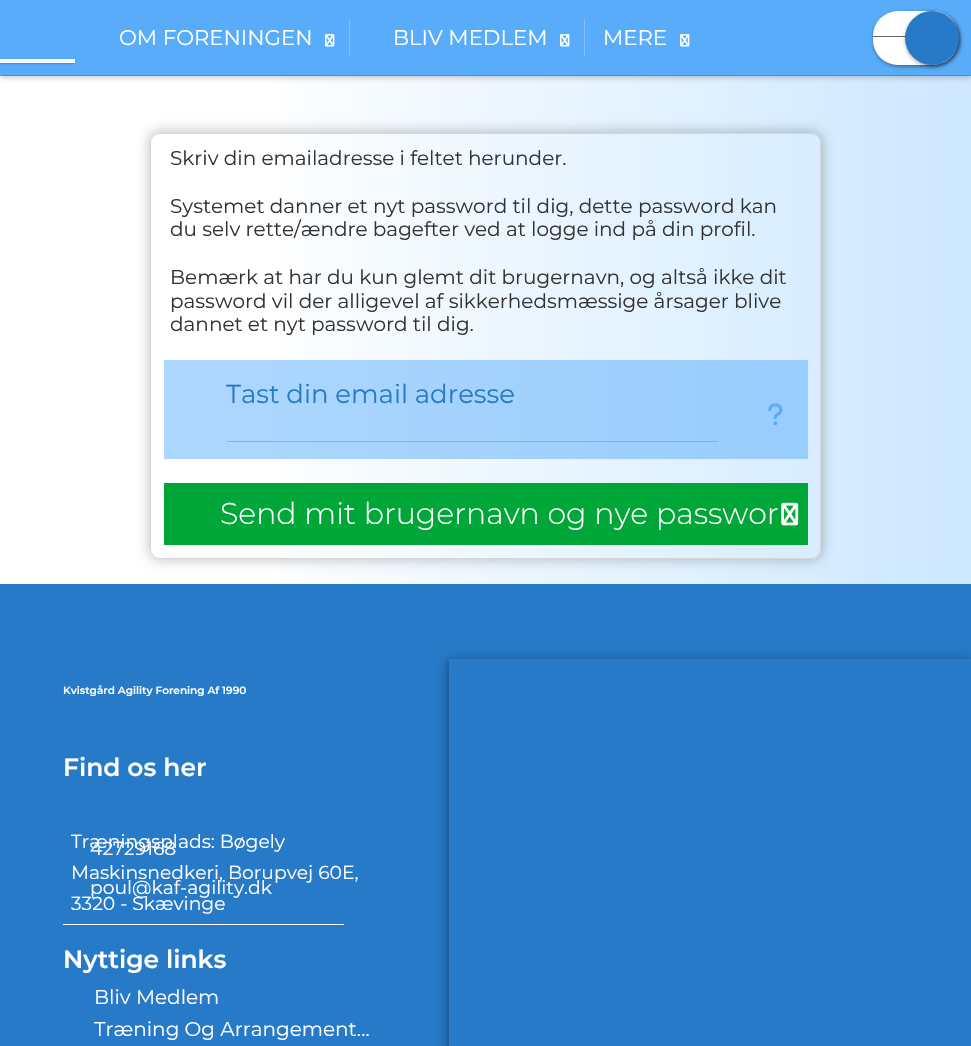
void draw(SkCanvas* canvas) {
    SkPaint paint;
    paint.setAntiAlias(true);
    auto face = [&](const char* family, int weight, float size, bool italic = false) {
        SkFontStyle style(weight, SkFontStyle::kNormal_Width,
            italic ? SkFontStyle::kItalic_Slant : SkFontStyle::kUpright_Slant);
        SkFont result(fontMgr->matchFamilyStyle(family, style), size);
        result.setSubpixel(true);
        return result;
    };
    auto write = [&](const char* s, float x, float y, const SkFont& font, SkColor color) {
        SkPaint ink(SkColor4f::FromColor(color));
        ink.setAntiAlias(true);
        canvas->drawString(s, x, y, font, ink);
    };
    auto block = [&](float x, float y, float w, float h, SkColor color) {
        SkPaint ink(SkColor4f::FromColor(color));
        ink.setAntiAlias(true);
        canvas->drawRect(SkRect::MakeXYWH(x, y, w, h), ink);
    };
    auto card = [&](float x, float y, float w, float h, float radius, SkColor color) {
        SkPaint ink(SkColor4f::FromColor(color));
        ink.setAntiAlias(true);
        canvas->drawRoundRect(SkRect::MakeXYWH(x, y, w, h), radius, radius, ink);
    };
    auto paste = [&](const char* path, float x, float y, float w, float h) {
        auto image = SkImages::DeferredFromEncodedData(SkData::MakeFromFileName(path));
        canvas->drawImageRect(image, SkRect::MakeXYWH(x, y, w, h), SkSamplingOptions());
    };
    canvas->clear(SK_ColorWHITE);
    block(164, 360, 79, 99, SkColorSetRGB(172, 214, 253));
    block(0, 75, 971, 1, SkColorSetRGB(88, 172, 250));
    {
        const SkColor colors[] = {SK_ColorWHITE, SkColorSetRGB(205, 232, 255)};
        const float stops[] = {0, 1};
        const SkPoint ends[] = {{243, 330}, {971, 330}};
        paint.setShader(SkGradientShader::MakeLinear(ends, colors, stops, 2, SkTileMode::kClamp));
        paint.setAlpha(255);
    }
    canvas->drawRect(SkRect::MakeXYWH(279, 76, 692, 508), paint);
    paint.setShader(nullptr);
    paint.setColor(SkColorSetARGB(51, 0, 0, 0));
    paint.setMaskFilter(SkMaskFilter::MakeBlur(kNormal_SkBlurStyle, 2.5f));
    canvas->drawRect(SkRect::MakeXYWH(0, 3, 971, 75), paint);
    paint.setMaskFilter(nullptr);
    block(0, 0, 971, 75, SkColorSetRGB(88, 172, 250));
    auto kFont1 = face("Montserrat", 400, 21.25f);
    write("OM FORENINGEN", 119, 45, kFont1, SK_ColorWHITE);
    paste("pic1.png", 325, 34, 10, 13);
    block(349, 19, 1, 37, SkColorSetRGB(130, 193, 251));
    write("BLIV MEDLEM", 393, 45, kFont1, SK_ColorWHITE);
    paste("pic1.png", 560, 34, 10, 13);
    block(584, 19, 1, 37, SkColorSetRGB(130, 193, 251));
    write("MERE", 603, 45, kFont1, SK_ColorWHITE);
    paste("pic1.png", 680, 34, 10, 13);
    paint.setMaskFilter(SkMaskFilter::MakeBlur(kNormal_SkBlurStyle, 1));
    canvas->drawRect(SkRect::MakeXYWH(0, 60, 75, 4), paint);
    paint.setMaskFilter(nullptr);
    block(0, 59, 75, 4, SK_ColorWHITE);
    paint.setColor(SkColorSetARGB(128, 0, 0, 0));
    paint.setMaskFilter(SkMaskFilter::MakeBlur(kNormal_SkBlurStyle, 2));
    canvas->drawRoundRect(SkRect::MakeXYWH(874, 13, 85, 53), 25, 25, paint);
    paint.setMaskFilter(nullptr);
    card(873, 11, 85, 54, 25, SK_ColorWHITE);
    paint.setColor(SK_ColorWHITE);
    canvas->drawPath(SkPathBuilder().moveTo(913, 11).lineTo(933, 11).cubicTo(947, 11, 958, 22, 958, 36).lineTo(913, 36).close().detach(), paint);
    block(873, 36, 40, 1, SkColorSetRGB(102, 102, 102));
    canvas->save();
    canvas->clipPath(SkPathBuilder().moveTo(898, 11).lineTo(933, 11).cubicTo(947, 11, 958, 22, 958, 36).lineTo(958, 40).cubicTo(958, 54, 947, 65, 933, 65).lineTo(898, 65).cubicTo(884, 65, 873, 54, 873, 40).lineTo(873, 36).cubicTo(873, 22, 884, 11, 898, 11).close().detach(), true);
    block(913, 45, 45, 18, SK_ColorWHITE);
    canvas->restore();
    paint.setColor(SkColorSetARGB(128, 0, 0, 0));
    paint.setMaskFilter(SkMaskFilter::MakeBlur(kNormal_SkBlurStyle, 2));
    canvas->drawRoundRect(SkRect::MakeXYWH(906, 13, 54, 53), 26.5f, 26.5f, paint);
    paint.setMaskFilter(nullptr);
    paint.setColor(SkColorSetRGB(38, 122, 200));
    canvas->drawCircle(932, 38, 27, paint);
    {
        const SkColor colors[] = {SkColorSetRGB(172, 214, 253), SkColorSetRGB(147, 202, 253)};
        const float stops[] = {0, 1};
        const SkPoint ends[] = {{243, 330}, {971, 330}};
        paint.setShader(SkGradientShader::MakeLinear(ends, colors, stops, 2, SkTileMode::kClamp));
        paint.setAlpha(255);
    }
    canvas->drawRect(SkRect::MakeXYWH(243, 360, 565, 99), paint);
    canvas->save();
    canvas->clipPath(SkPathBuilder(SkPathFillType::kEvenOdd).moveTo(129, 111).lineTo(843, 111).lineTo(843, 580).lineTo(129, 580).close().moveTo(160, 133).lineTo(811, 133).cubicTo(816.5f, 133, 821, 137.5f, 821, 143).lineTo(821, 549).cubicTo(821, 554.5f, 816.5f, 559, 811, 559).lineTo(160, 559).cubicTo(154.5f, 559, 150, 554.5f, 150, 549).lineTo(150, 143).cubicTo(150, 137.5f, 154.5f, 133, 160, 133).close().detach(), true);
    paint.setShader(nullptr);
    paint.setColor(SkColorSetARGB(51, 0, 0, 0));
    paint.setMaskFilter(SkMaskFilter::MakeBlur(kNormal_SkBlurStyle, 6));
    canvas->drawRoundRect(SkRect::MakeXYWH(148, 130, 676, 431), 13, 13, paint);
    paint.setMaskFilter(nullptr);
    canvas->restore();
    paint.setStyle(SkPaint::kStroke_Style);
    paint.setStrokeWidth(1);
    paint.setColor(SkColorSetRGB(214, 214, 214));
    canvas->drawRoundRect(SkRect::MakeXYWH(150.5f, 133.5f, 670, 425), 9.5f, 9.5f, paint);
    auto kFont2 = face("Montserrat", 400, 20);
    write("Skriv din emailadresse i feltet herunder.", 170, 165, kFont2, SkColorSetRGB(51, 51, 51));
    write("Systemet danner et nyt password til dig, dette password kan", 170, 213, kFont2, SkColorSetRGB(51, 51, 51));
    write("du selv rette/ændre bagefter ved at logge ind på din profil.", 170, 236, kFont2, SkColorSetRGB(51, 51, 51));
    write("Bemærk at har du kun glemt dit brugernavn, og altså ikke dit", 170, 284, kFont2, SkColorSetRGB(51, 51, 51));
    write("password vil der alligevel af sikkerhedsmæssige årsager blive", 170, 308, kFont2, SkColorSetRGB(51, 51, 51));
    write("dannet et nyt password til dig.", 170, 331, kFont2, SkColorSetRGB(51, 51, 51));
    auto kFont3 = face("Montserrat", 400, 26);
    write("Tast din email adresse", 226, 403, kFont3, SkColorSetRGB(38, 122, 200));
    paste("pic2.png", 768, 403, 15, 23);
    paint.setStyle(SkPaint::kFill_Style);
    paint.setColor(SkColorSetRGB(170, 170, 170));
    canvas->drawPath(SkPathBuilder().moveTo(719, 442).lineTo(226, 442).lineTo(228, 441).lineTo(718, 441).close().detach(), paint);
    block(164, 483, 644, 62, SkColorSetRGB(0, 166, 55));
    auto kFont4 = face("Montserrat", 300, 30);
    write("Send mit brugernavn og nye passwor", 220, 524, kFont4, SK_ColorWHITE);
    paste("pic3.png", 781, 502, 18, 24);
    block(0, 584, 971, 462, SkColorSetRGB(38, 122, 200));
    auto kFont5 = face("Montserrat", 600, 10.5f);
    write("Kvistgård Agility Forening Af 1990", 63, 694, kFont5, SK_ColorWHITE);
    auto kFont6 = face("Montserrat", 600, 25);
    write("Find os her", 63, 776, kFont6, SK_ColorWHITE);
    auto kFont7 = face("Montserrat", 400, 18.75f);
    write("Træningsplads: Bøgely", 71, 848, kFont7, SK_ColorWHITE);
    write("Maskinsnedkeri, Borupvej 60E,", 71, 879, kFont7, SK_ColorWHITE);
    write("3320 - Skævinge", 71, 910, kFont7, SK_ColorWHITE);
    write("42729168", 90, 855, kFont7, SK_ColorWHITE);
    write("poul@kaf-agility.dk", 90, 894, kFont7, SK_ColorWHITE);
    block(63, 924, 281, 1, SK_ColorWHITE);
    write("Nyttige links", 63, 968, kFont6, SK_ColorWHITE);
    write("Bliv Medlem", 94, 1004, kFont2, SK_ColorWHITE);
    write("Træning Og Arrangement…", 94, 1036, kFont2, SK_ColorWHITE);
    block(446, 659, 3, 387, SkColorSetRGB(36, 116, 190));
    canvas->save();
    canvas->clipPath(SkPathBuilder(SkPathFillType::kEvenOdd).moveTo(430, 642).lineTo(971, 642).lineTo(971, 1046).lineTo(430, 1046).close().moveTo(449, 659).lineTo(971, 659).lineTo(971, 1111).lineTo(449, 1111).close().detach(), true);
    paint.setColor(SkColorSetARGB(102, 0, 0, 0));
    paint.setMaskFilter(SkMaskFilter::MakeBlur(kNormal_SkBlurStyle, 6));
    canvas->drawRect(SkRect::MakeXYWH(449, 661, 522, 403), paint);
    paint.setMaskFilter(nullptr);
    canvas->restore();
}
